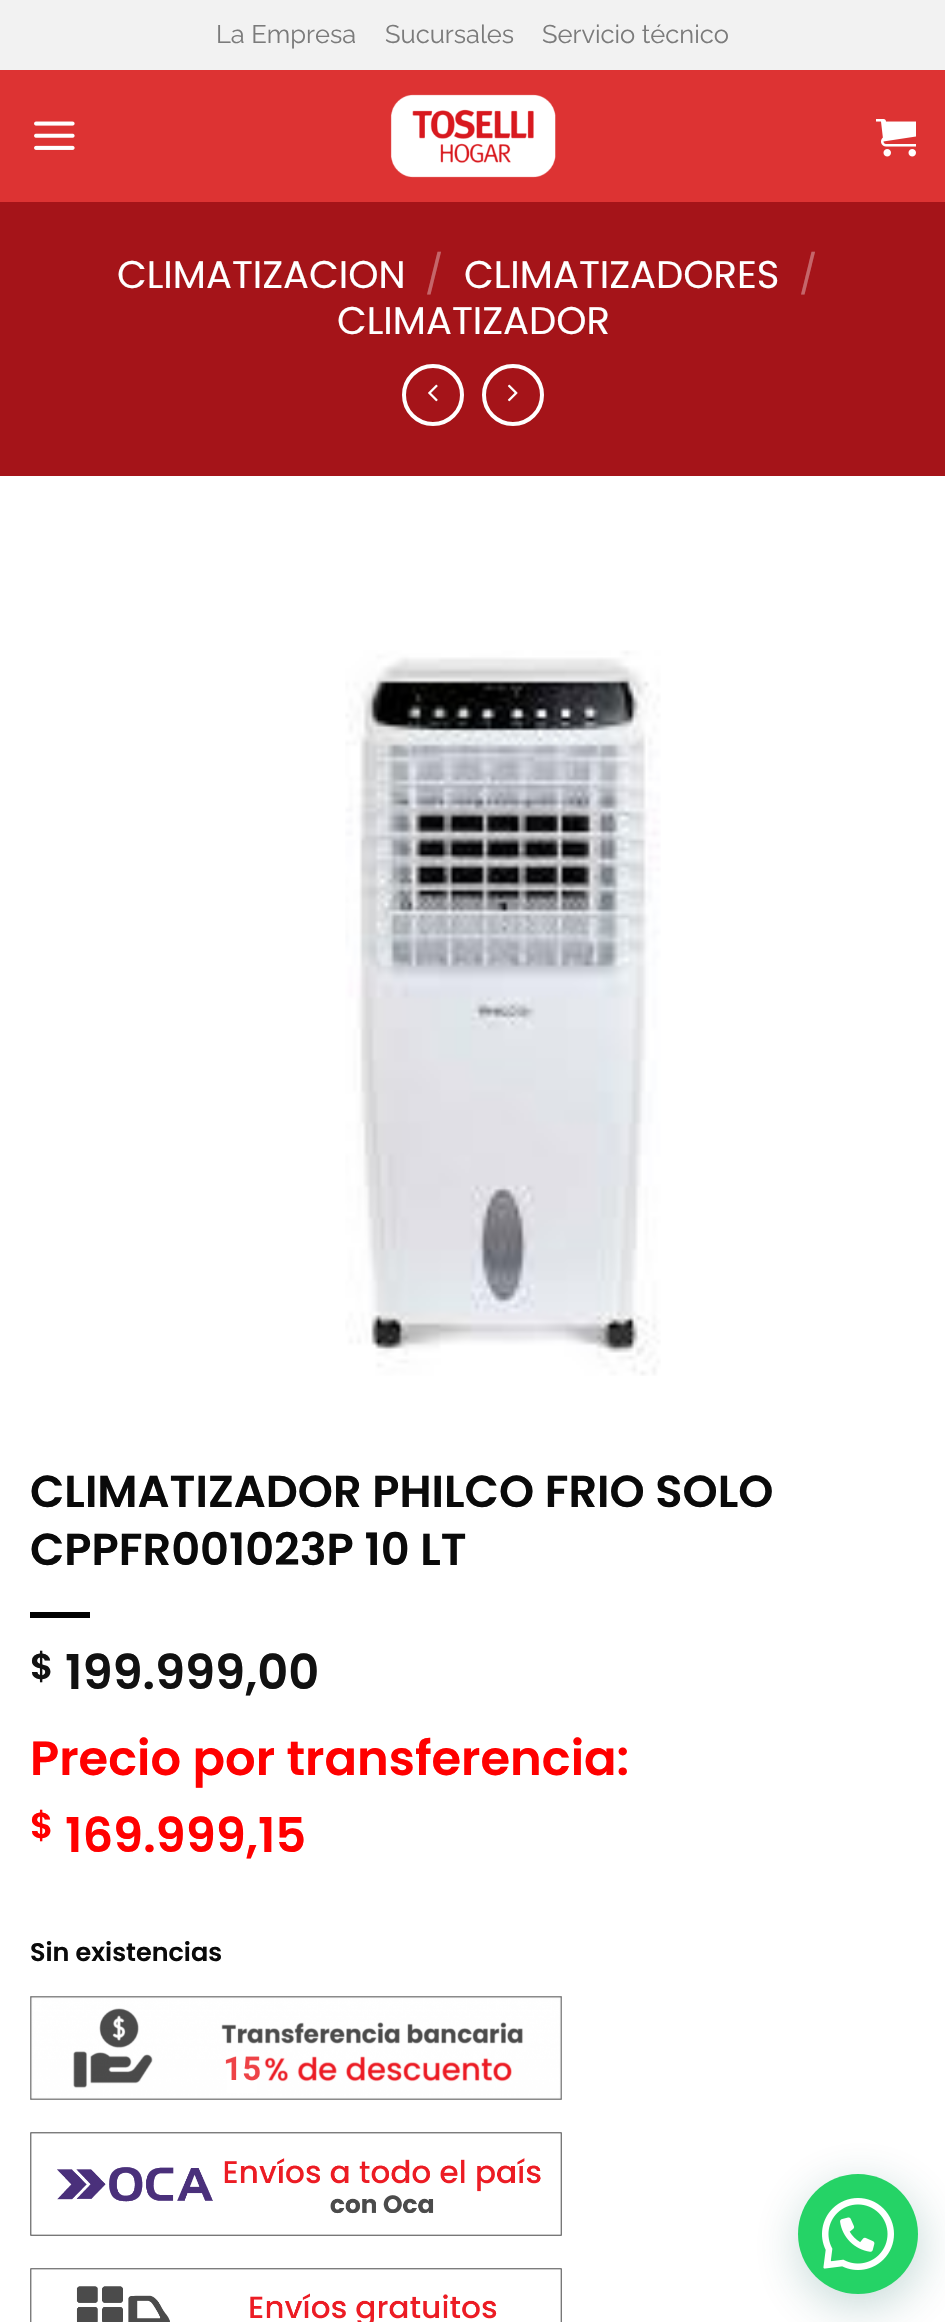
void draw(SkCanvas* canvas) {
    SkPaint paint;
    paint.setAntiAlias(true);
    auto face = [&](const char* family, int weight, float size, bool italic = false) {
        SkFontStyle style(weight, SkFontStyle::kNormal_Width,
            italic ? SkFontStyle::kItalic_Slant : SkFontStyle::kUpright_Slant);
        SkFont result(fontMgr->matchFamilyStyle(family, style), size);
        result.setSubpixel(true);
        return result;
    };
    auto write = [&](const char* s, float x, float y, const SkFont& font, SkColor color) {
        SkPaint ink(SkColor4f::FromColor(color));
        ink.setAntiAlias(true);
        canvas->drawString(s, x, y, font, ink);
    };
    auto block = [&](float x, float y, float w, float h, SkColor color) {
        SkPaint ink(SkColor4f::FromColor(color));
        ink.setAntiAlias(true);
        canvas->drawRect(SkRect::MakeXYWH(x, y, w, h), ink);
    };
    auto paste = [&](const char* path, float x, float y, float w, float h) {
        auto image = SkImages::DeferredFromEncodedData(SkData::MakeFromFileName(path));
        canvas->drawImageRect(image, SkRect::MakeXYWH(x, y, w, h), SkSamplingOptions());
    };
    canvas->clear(SK_ColorWHITE);
    block(0, 70, 945, 132, SkColorSetRGB(221, 51, 51));
    block(0, 0, 945, 70, SkColorSetRGB(242, 242, 242));
    auto kFont1 = face("Raleway", 400, 25.5f);
    write("La Empresa", 216, 43, kFont1, SkColorSetRGB(123, 123, 123));
    write("Sucursales", 385, 43, kFont1, SkColorSetRGB(123, 123, 123));
    write("Servicio técnico", 542, 43, kFont1, SkColorSetRGB(123, 123, 123));
    paste("pic1.png", 34, 121, 41, 29);
    paste("pic2.png", 390, 94, 166, 84);
    paste("pic3.png", 876, 119, 40, 38);
    block(0, 202, 945, 274, SkColorSetRGB(165, 20, 25));
    auto kFont2 = face("Poppins", 400, 38.5f);
    write("CLIMATIZACION", 117, 288, kFont2, SK_ColorWHITE);
    write("/", 425, 288, kFont2, SkColorSetRGB(197, 102, 106));
    write("CLIMATIZADORES", 464, 288, kFont2, SK_ColorWHITE);
    write("/", 799, 288, kFont2, SkColorSetRGB(197, 102, 106));
    write("CLIMATIZADOR", 337, 334, kFont2, SK_ColorWHITE);
    paint.setStyle(SkPaint::kStroke_Style);
    paint.setStrokeWidth(4);
    paint.setColor(SK_ColorWHITE);
    canvas->drawCircle(433, 395, 29, paint);
    paste("pic4.png", 428, 384, 10, 18);
    canvas->drawCircle(513, 395, 29, paint);
    paste("pic5.png", 507, 384, 11, 18);
    paste("pic6.png", 345, 650, 316, 726);
    auto kFont3 = face("Poppins", 600, 44.75f);
    write("CLIMATIZADOR PHILCO FRIO SOLO", 30, 1507, kFont3, SkColorSetRGB(10, 10, 10));
    write("CPPFR001023P 10 LT", 30, 1565, kFont3, SkColorSetRGB(10, 10, 10));
    block(30, 1612, 60, 6, SK_ColorBLACK);
    auto kFont4 = face("Poppins", 600, 36);
    write("$", 30, 1679, kFont4, SkColorSetRGB(17, 17, 17));
    auto kFont5 = face("Poppins", 600, 48);
    write("199.999,00", 65, 1689, kFont5, SkColorSetRGB(17, 17, 17));
    write("Precio por transferencia:", 30, 1775, kFont5, SkColorSetRGB(255, 0, 0));
    write("$", 30, 1838, kFont4, SkColorSetRGB(255, 0, 0));
    write("169.999,15", 65, 1852, kFont5, SkColorSetRGB(255, 0, 0));
    auto kFont6 = face("Poppins", 600, 25.5f);
    write("Sin existencias", 30, 1961, kFont6, SkColorSetRGB(10, 10, 10));
    paste("pic7.png", 30, 1996, 532, 104);
    paste("pic8.png", 30, 2132, 532, 104);
    paste("pic9.png", 30, 2268, 532, 54);
    paint.setStyle(SkPaint::kFill_Style);
    paint.setColor(SkColorSetARGB(61, 7, 94, 84));
    paint.setMaskFilter(SkMaskFilter::MakeBlur(kNormal_SkBlurStyle, 24));
    canvas->drawRoundRect(SkRect::MakeXYWH(800, 2186, 120, 120), 60, 60, paint);
    paint.setMaskFilter(nullptr);
    paint.setColor(SkColorSetRGB(37, 211, 102));
    canvas->drawCircle(858, 2234, 60, paint);
    paste("pic10.png", 822, 2198, 72, 72);
}
